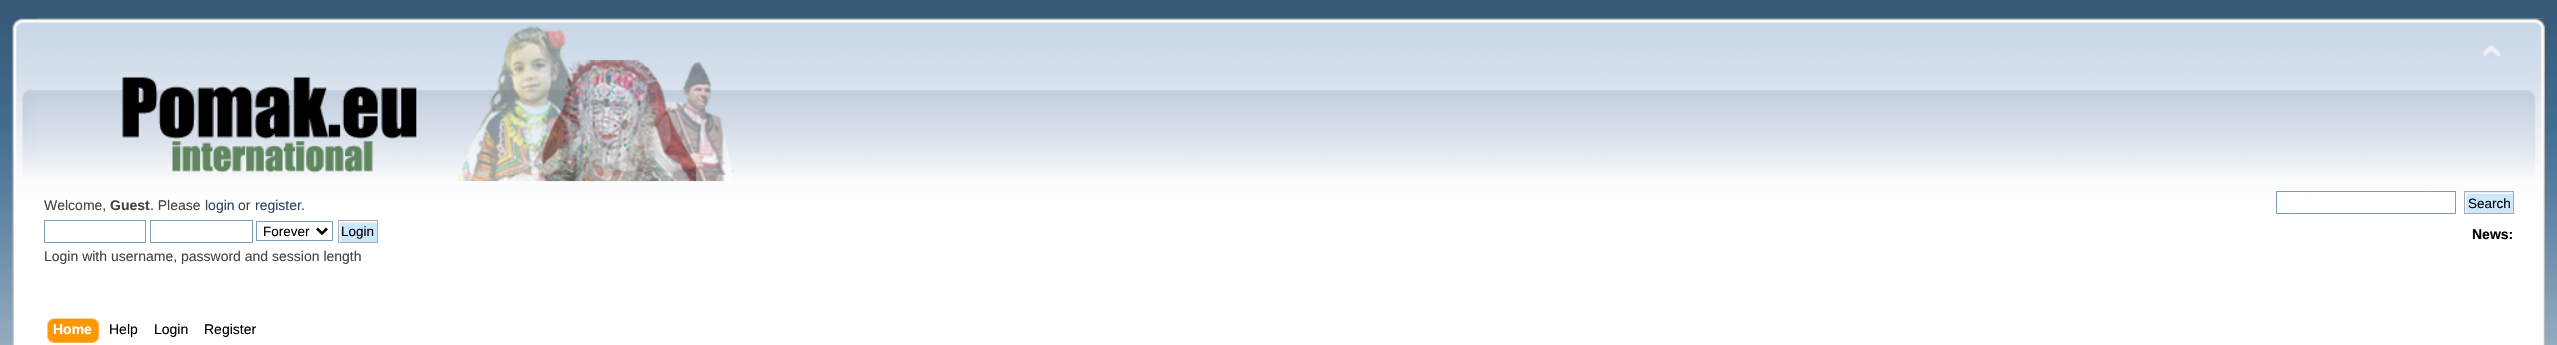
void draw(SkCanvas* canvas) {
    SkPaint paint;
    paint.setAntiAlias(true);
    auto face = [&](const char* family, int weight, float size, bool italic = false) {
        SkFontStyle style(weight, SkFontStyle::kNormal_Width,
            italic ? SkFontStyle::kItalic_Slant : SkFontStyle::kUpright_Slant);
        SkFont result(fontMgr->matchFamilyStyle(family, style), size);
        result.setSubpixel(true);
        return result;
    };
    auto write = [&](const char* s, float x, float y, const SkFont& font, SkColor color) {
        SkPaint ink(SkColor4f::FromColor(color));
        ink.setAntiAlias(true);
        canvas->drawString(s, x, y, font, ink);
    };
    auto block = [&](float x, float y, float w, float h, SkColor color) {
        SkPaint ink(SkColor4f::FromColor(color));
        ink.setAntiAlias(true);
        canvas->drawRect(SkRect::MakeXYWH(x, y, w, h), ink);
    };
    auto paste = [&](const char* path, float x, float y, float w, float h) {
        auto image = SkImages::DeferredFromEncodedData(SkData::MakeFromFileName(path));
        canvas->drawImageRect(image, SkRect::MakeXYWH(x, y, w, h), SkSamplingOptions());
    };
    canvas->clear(SK_ColorWHITE);
    paste("pic1.png", 0, 0, 2557, 345);
    paste("pic2.png", 12, 18, 2533, 327);
    paste("pic3.png", 37, 18, 2508, 327);
    paste("pic4.png", 122, 26, 612, 156);
    paste("pic5.png", 2462, 25, 2, 2);
    paste("pic6.png", 2482, 44, 19, 15);
    auto kFont1 = face("Liberation Sans", 400, 14);
    write("Welcome,", 44, 210, kFont1, SkColorSetRGB(68, 68, 68));
    auto kFont2 = face("Liberation Sans", 700, 14);
    write("Guest", 110, 210, kFont2, SkColorSetRGB(68, 68, 68));
    write(". Please", 150, 210, kFont1, SkColorSetRGB(68, 68, 68));
    write("login", 205, 210, kFont1, SkColorSetRGB(51, 68, 102));
    write("or", 238, 210, kFont1, SkColorSetRGB(68, 68, 68));
    write("register", 255, 210, kFont1, SkColorSetRGB(51, 68, 102));
    write(".", 301, 210, kFont1, SkColorSetRGB(68, 68, 68));
    paint.setStyle(SkPaint::kStroke_Style);
    paint.setStrokeWidth(1);
    paint.setColor(SkColorSetRGB(127, 157, 185));
    canvas->drawRect(SkRect::MakeXYWH(44.5f, 220.5f, 101, 22), paint);
    canvas->drawRect(SkRect::MakeXYWH(150.5f, 220.5f, 102, 22), paint);
    canvas->drawRect(SkRect::MakeXYWH(256.5f, 221.5f, 76, 19), paint);
    paint.setStrokeWidth(2.5f);
    paint.setColor(SK_ColorBLACK);
    canvas->drawPath(SkPathBuilder().moveTo(317, 228.5f).lineTo(322, 233.5f).lineTo(327, 228.5f).detach(), paint);
    auto kFont3 = face("Liberation Sans", 400, 13.5f);
    write("Forever", 263, 236, kFont3, SK_ColorBLACK);
    paste("pic7.png", 339, 221, 38, 21);
    paint.setStrokeWidth(1);
    paint.setColor(SkColorSetRGB(170, 170, 170));
    canvas->drawRect(SkRect::MakeXYWH(338.5f, 220.5f, 39, 22), paint);
    write("Login", 341, 236, kFont3, SK_ColorBLACK);
    write("Login with username, password and session length", 44, 261, kFont1, SkColorSetRGB(68, 68, 68));
    block(2277, 192, 178, 2, SK_ColorWHITE);
    paint.setColor(SkColorSetRGB(127, 157, 185));
    canvas->drawRect(SkRect::MakeXYWH(2276.5f, 191.5f, 179, 22), paint);
    block(2465, 192, 48, 1, SkColorSetRGB(205, 231, 255));
    paste("pic8.png", 2465, 192, 48, 21);
    paint.setColor(SkColorSetRGB(170, 170, 170));
    canvas->drawRect(SkRect::MakeXYWH(2464.5f, 191.5f, 49, 22), paint);
    write("Search", 2468, 208, kFont3, SK_ColorBLACK);
    write("News:", 2472, 239, kFont2, SK_ColorBLACK);
    paste("pic9.png", 53, 318, 46, 25);
    paste("pic10.png", 47, 318, 46, 25);
    write("Home", 53, 334, kFont2, SK_ColorWHITE);
    write("Help", 109, 334, kFont1, SK_ColorBLACK);
    write("Login", 154, 334, kFont1, SK_ColorBLACK);
    write("Register", 204, 334, kFont1, SK_ColorBLACK);
}
